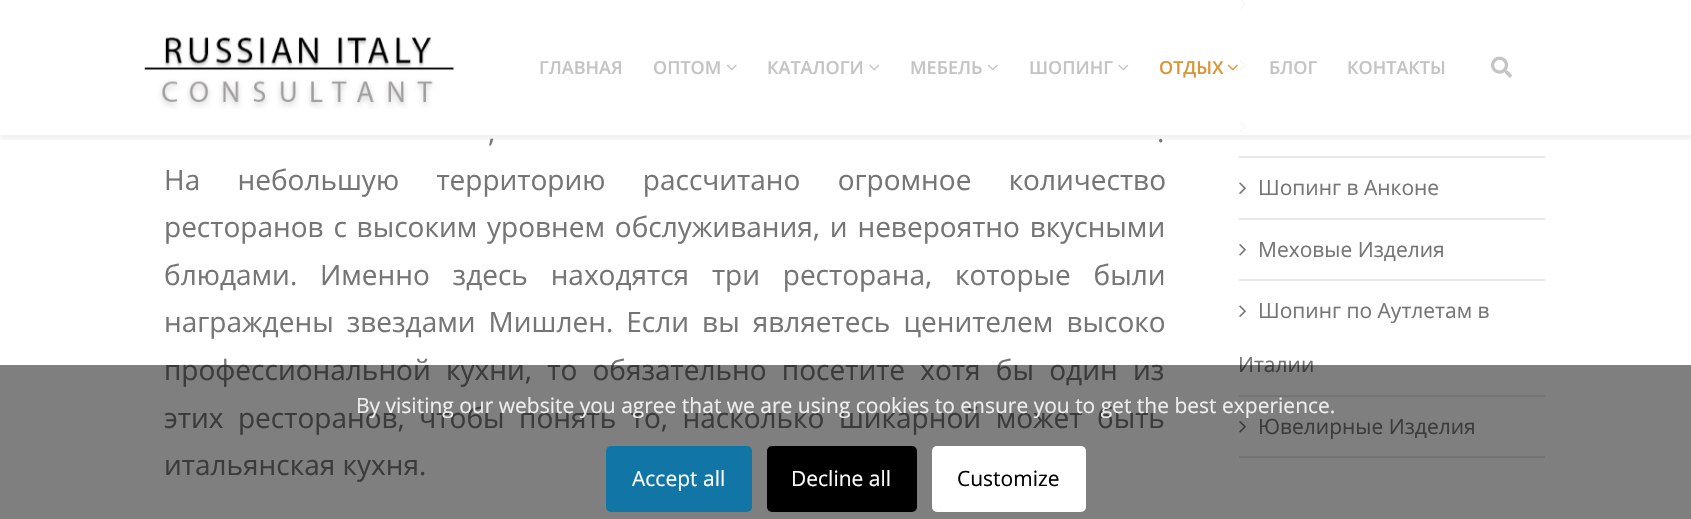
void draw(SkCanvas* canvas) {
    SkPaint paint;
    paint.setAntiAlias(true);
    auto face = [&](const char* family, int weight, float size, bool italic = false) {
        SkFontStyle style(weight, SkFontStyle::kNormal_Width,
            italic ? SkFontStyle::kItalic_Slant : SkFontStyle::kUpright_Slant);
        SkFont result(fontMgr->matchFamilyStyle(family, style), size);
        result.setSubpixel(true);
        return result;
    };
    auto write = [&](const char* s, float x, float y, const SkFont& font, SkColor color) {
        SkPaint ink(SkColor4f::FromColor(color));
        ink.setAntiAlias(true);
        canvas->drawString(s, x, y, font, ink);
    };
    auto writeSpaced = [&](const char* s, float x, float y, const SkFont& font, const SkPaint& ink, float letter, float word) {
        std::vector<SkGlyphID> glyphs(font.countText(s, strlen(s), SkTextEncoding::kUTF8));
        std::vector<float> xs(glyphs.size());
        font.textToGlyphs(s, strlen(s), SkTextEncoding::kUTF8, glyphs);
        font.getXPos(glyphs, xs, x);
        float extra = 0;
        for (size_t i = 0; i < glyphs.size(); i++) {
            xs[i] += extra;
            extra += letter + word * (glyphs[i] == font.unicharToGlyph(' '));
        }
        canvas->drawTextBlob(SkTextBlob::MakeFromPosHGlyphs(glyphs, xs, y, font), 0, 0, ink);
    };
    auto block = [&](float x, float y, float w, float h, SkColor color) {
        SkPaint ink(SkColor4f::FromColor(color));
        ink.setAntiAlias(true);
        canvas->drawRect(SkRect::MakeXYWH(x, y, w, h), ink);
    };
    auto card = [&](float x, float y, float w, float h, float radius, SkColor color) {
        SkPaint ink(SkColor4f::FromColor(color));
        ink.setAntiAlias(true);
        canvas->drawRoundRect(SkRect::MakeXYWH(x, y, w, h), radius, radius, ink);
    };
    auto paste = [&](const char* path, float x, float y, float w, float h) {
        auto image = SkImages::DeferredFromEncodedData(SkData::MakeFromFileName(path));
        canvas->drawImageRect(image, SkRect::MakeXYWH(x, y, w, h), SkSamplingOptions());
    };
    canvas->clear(SK_ColorWHITE);
    block(1239, 33, 306, 2, SkColorSetRGB(232, 232, 232));
    paste("pic6.png", 1239, 0, 7, 10);
    block(1239, 95, 306, 2, SkColorSetRGB(232, 232, 232));
    paste("pic7.png", 1239, 59, 7, 12);
    paste("pic8.png", 1239, 121, 7, 12);
    canvas->save();
    canvas->clipRect(SkRect::MakeXYWH(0, 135, 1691, 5));
    paint.setColor(SkColorSetARGB(13, 0, 0, 0));
    paint.setMaskFilter(SkMaskFilter::MakeBlur(kNormal_SkBlurStyle, 2));
    canvas->drawRect(SkRect::MakeXYWH(0, 5, 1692, 135), paint);
    paint.setMaskFilter(nullptr);
    canvas->restore();
    block(1239, 0, 306, 133, SkColorSetARGB(242, 255, 255, 255));
    paste("pic1.png", 144, 26, 315, 83);
    auto kFont1 = face("Open Sans", 600, 18);
    write("ГЛАВНАЯ", 539, 74, kFont1, SkColorSetRGB(196, 196, 196));
    write("ОПТОМ", 653, 74, kFont1, SkColorSetRGB(196, 196, 196));
    paste("pic2.png", 726, 64, 11, 7);
    write("КАТАЛОГИ", 767, 74, kFont1, SkColorSetRGB(196, 196, 196));
    paste("pic3.png", 869, 64, 11, 7);
    write("МЕБЕЛЬ", 910, 74, kFont1, SkColorSetRGB(196, 196, 196));
    paste("pic2.png", 987, 64, 11, 7);
    write("ШОПИНГ", 1029, 74, kFont1, SkColorSetRGB(196, 196, 196));
    paste("pic3.png", 1118, 64, 11, 7);
    write("ОТДЫХ", 1159, 74, kFont1, SkColorSetRGB(217, 150, 56));
    paste("pic4.png", 1227, 64, 11, 7);
    write("БЛОГ", 1269, 74, kFont1, SkColorSetRGB(196, 196, 196));
    write("КОНТАКТЫ", 1347, 74, kFont1, SkColorSetRGB(196, 196, 196));
    paste("pic5.png", 1491, 56, 21, 22);
    auto kFont2 = face("Open Sans", 400, 28);
    paint.setColor(SkColorSetRGB(117, 117, 117));
    writeSpaced(",", 488, 142, kFont2, paint, 0, 1);
    writeSpaced(".", 1157, 142, kFont2, paint, 0, 1);
    writeSpaced("На небольшую территорию рассчитано огромное количество", 164, 190, kFont2, paint, 0, 30);
    writeSpaced("ресторанов с высоким уровнем обслуживания, и невероятно вкусными", 164, 237, kFont2, paint, 0, 2.5f);
    writeSpaced("блюдами. Именно здесь находятся три ресторана, которые были", 164, 285, kFont2, paint, 0, 15.5f);
    writeSpaced("награждены звездами Мишлен. Если вы являетесь ценителем высоко", 164, 332, kFont2, paint, 0, 5.75f);
    writeSpaced("профессиональной кухни, то обязательно посетите хотя бы один из", 164, 380, kFont2, paint, 0, 8);
    writeSpaced("этих ресторанов, чтобы понять то, насколько шикарной может быть", 164, 428, kFont2, paint, 0, 7.25f);
    write("итальянская кухня.", 164, 475, kFont2, SkColorSetRGB(117, 117, 117));
    block(1239, 156, 306, 2, SkColorSetRGB(232, 232, 232));
    block(1239, 218, 306, 2, SkColorSetRGB(232, 232, 232));
    paste("pic7.png", 1239, 182, 7, 12);
    auto kFont3 = face("Open Sans", 400, 21);
    write("Шопинг в Анконе", 1258, 195, kFont3, SkColorSetRGB(117, 117, 117));
    block(1239, 279, 306, 2, SkColorSetRGB(232, 232, 232));
    paste("pic8.png", 1239, 244, 7, 12);
    write("Меховые Изделия", 1258, 257, kFont3, SkColorSetRGB(117, 117, 117));
    block(1239, 395, 306, 2, SkColorSetRGB(232, 232, 232));
    paste("pic7.png", 1239, 305, 7, 12);
    write("Шопинг по Аутлетам в", 1258, 318, kFont3, SkColorSetRGB(117, 117, 117));
    write("Италии", 1238, 372, kFont3, SkColorSetRGB(117, 117, 117));
    block(1239, 456, 306, 2, SkColorSetRGB(232, 232, 232));
    paste("pic8.png", 1239, 421, 7, 12);
    write("Ювелирные Изделия", 1258, 434, kFont3, SkColorSetRGB(117, 117, 117));
    block(0, 365, 1691, 154, SkColorSetARGB(128, 0, 0, 0));
    write("By visiting our website you agree that we are using cookies to ensure you to get the best experience.", 356, 413, kFont3, SkColorSetRGB(238, 238, 238));
    paint.setColor(SkColorSetRGB(17, 118, 166));
    canvas->drawRoundRect(SkRect::MakeXYWH(607.5f, 447.5f, 143, 63), 3.5f, 3.5f, paint);
    paint.setStyle(SkPaint::kStroke_Style);
    paint.setStrokeWidth(3);
    canvas->drawRoundRect(SkRect::MakeXYWH(607.5f, 447.5f, 143, 63), 3.5f, 3.5f, paint);
    write("Accept all", 632, 486, kFont3, SK_ColorWHITE);
    paint.setStyle(SkPaint::kFill_Style);
    paint.setColor(SK_ColorBLACK);
    canvas->drawRoundRect(SkRect::MakeXYWH(768.5f, 447.5f, 147, 63), 3.5f, 3.5f, paint);
    paint.setStyle(SkPaint::kStroke_Style);
    canvas->drawRoundRect(SkRect::MakeXYWH(768.5f, 447.5f, 147, 63), 3.5f, 3.5f, paint);
    write("Decline all", 791, 486, kFont3, SK_ColorWHITE);
    card(932, 446, 154, 66, 5, SK_ColorWHITE);
    write("Customize", 957, 486, kFont3, SK_ColorBLACK);
}
